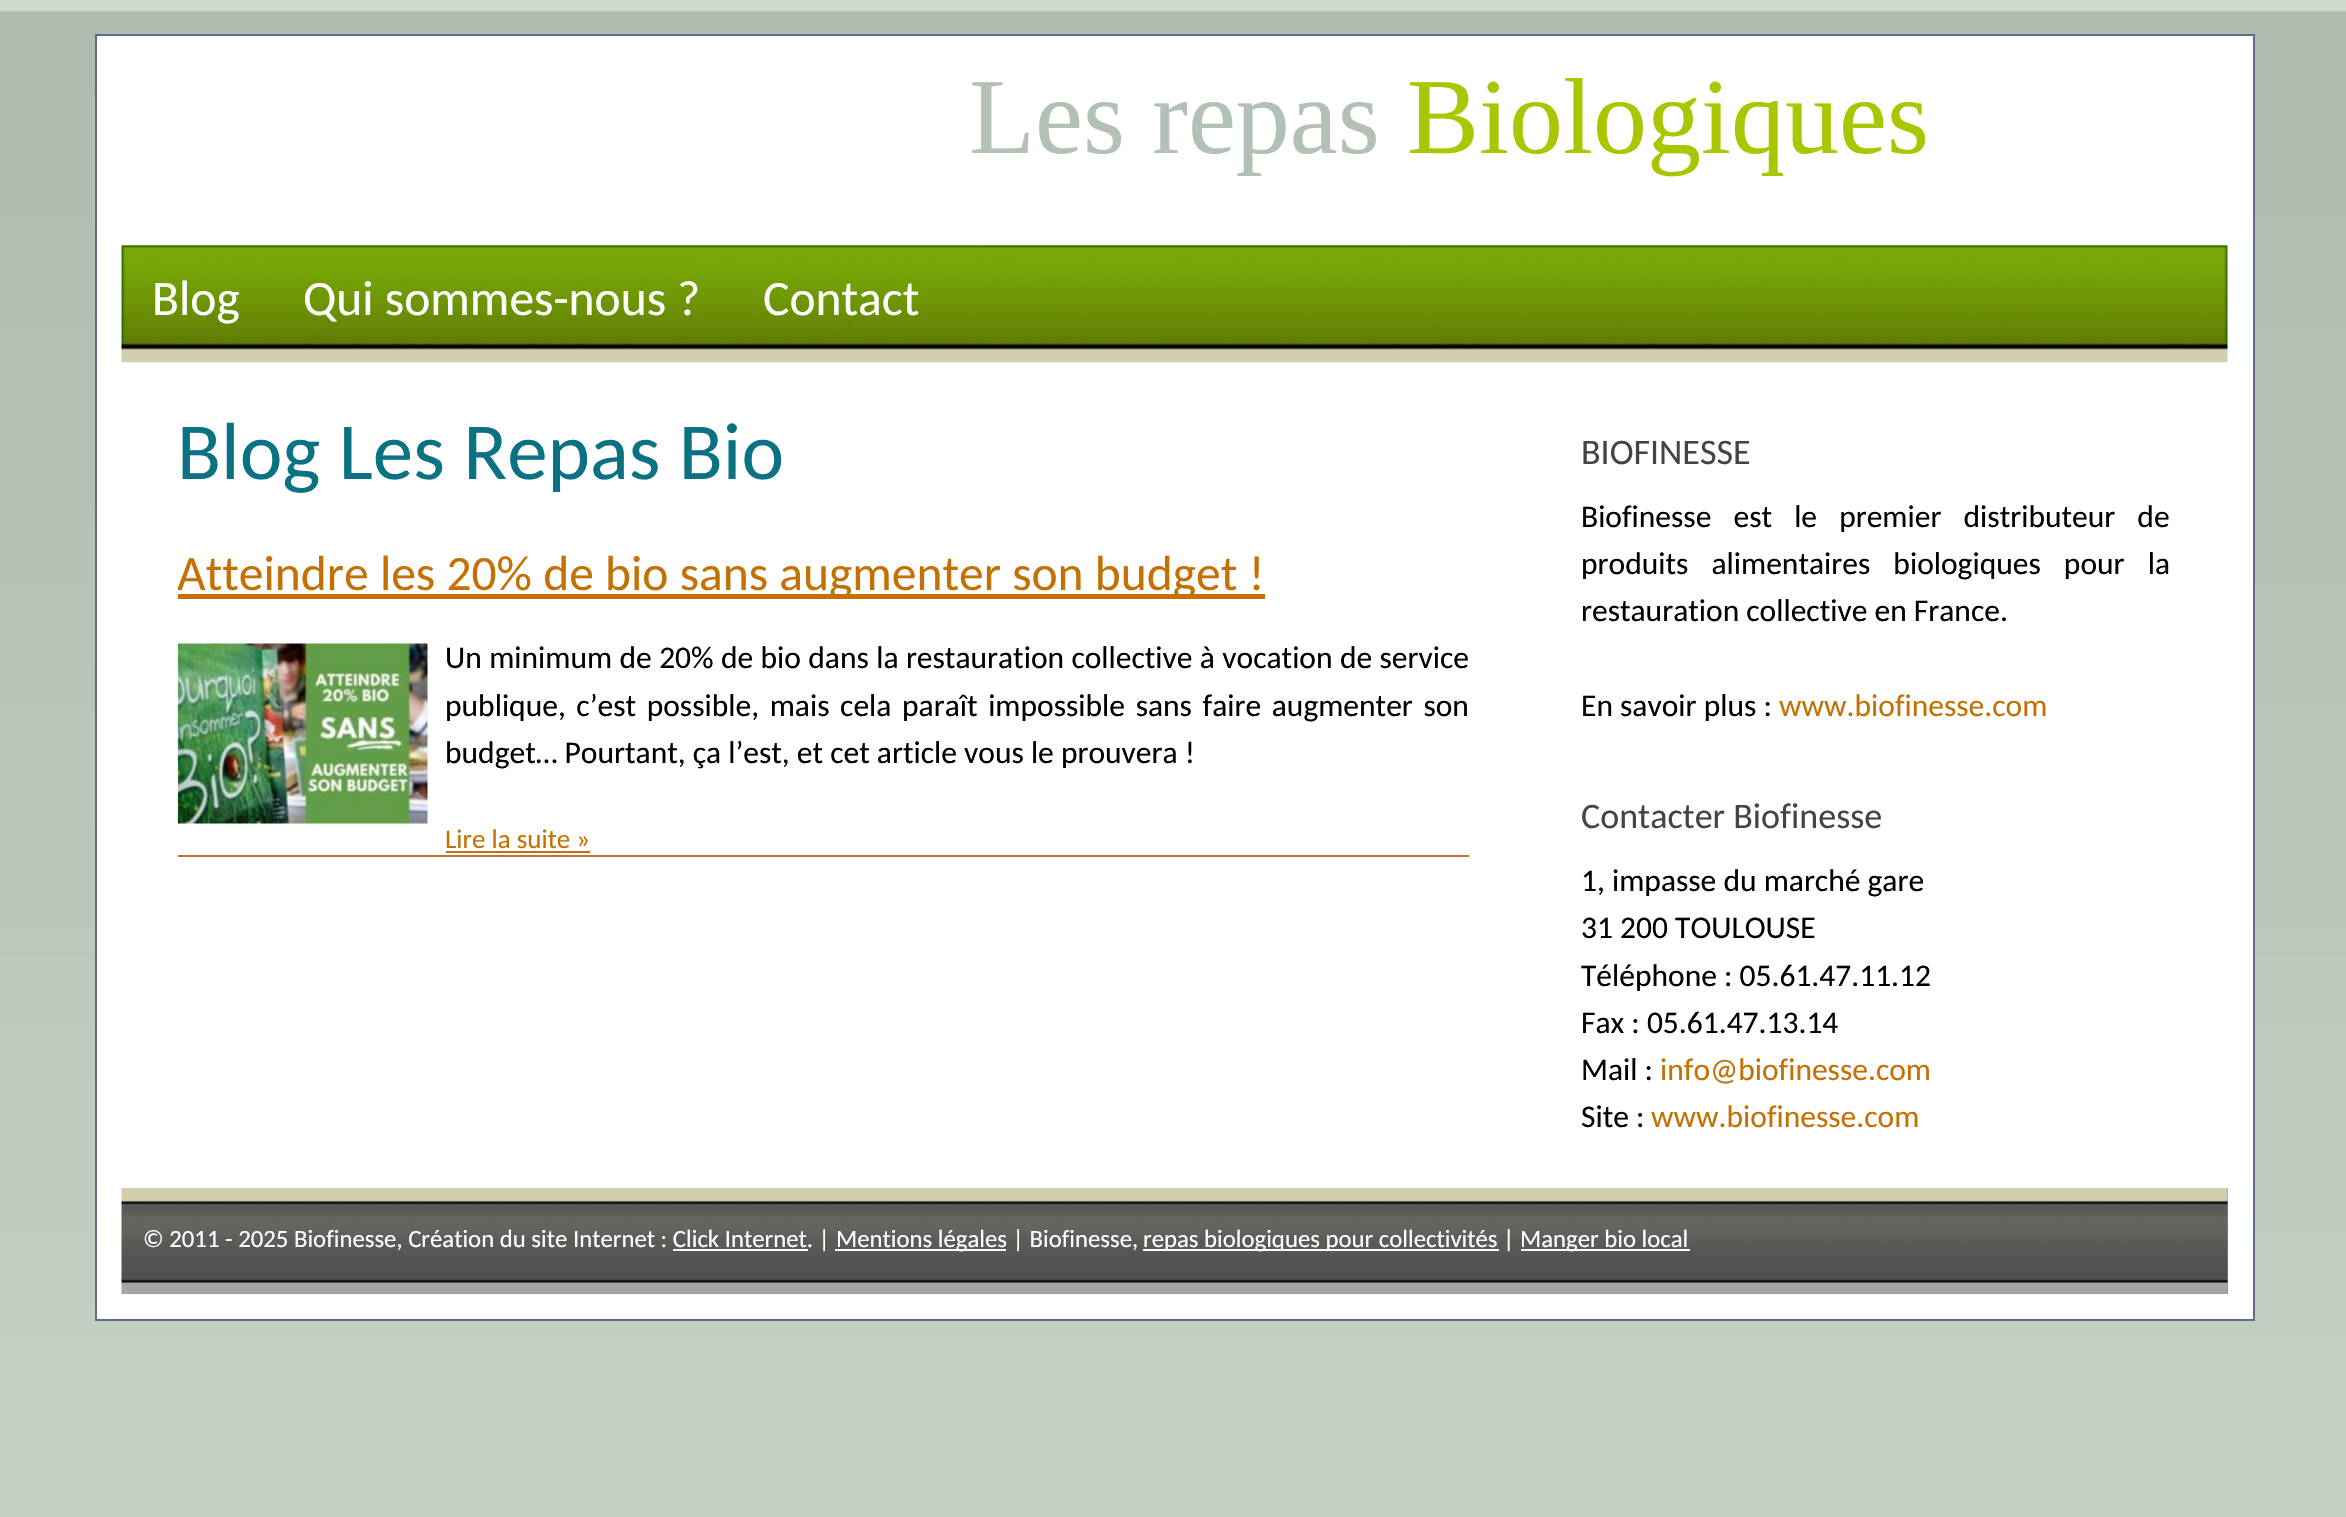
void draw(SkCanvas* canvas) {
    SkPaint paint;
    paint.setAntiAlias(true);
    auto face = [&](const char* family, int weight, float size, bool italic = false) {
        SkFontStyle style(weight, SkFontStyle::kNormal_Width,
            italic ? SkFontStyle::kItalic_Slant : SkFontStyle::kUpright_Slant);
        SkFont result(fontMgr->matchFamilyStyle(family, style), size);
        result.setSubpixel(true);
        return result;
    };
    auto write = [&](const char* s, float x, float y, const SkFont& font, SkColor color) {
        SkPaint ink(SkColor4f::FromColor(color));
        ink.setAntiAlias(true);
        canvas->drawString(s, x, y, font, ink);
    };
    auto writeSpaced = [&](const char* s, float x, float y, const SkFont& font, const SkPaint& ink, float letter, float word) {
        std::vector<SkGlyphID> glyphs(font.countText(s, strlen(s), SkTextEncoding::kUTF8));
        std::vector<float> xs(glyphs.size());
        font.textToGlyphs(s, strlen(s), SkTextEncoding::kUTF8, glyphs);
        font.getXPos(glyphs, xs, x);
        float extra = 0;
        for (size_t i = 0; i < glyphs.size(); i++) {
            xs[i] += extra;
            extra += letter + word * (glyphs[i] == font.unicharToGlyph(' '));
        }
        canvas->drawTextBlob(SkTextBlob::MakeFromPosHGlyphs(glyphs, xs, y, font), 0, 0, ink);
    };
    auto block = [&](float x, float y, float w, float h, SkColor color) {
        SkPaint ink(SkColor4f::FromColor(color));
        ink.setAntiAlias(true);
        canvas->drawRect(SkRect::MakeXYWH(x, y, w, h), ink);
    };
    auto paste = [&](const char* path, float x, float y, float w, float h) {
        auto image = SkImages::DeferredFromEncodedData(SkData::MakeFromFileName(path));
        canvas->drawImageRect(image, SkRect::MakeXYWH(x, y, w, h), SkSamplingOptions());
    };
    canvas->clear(SkColorSetRGB(204, 219, 206));
    paste("pic1.png", 0, 10, 2346, 1507);
    paint.setColor(SK_ColorWHITE);
    canvas->drawRect(SkRect::MakeXYWH(96, 35, 2158, 1285), paint);
    paint.setStyle(SkPaint::kStroke_Style);
    paint.setStrokeWidth(2);
    paint.setColor(SkColorSetRGB(96, 106, 139));
    canvas->drawRect(SkRect::MakeXYWH(96, 35, 2158, 1285), paint);
    auto kFont1 = face("Liberation Serif", 400, 108);
    write("Les repas", 969, 153, kFont1, SkColorSetRGB(179, 193, 181));
    write("Biologiques", 1407, 153, kFont1, SkColorSetRGB(169, 198, 0));
    paste("pic2.png", 121, 245, 2107, 118);
    auto kFont2 = face("Carlito", 400, 49.5f);
    write("Blog", 152, 315, kFont2, SK_ColorWHITE);
    write("Qui sommes-nous ?", 303, 315, kFont2, SK_ColorWHITE);
    write("Contact", 763, 315, kFont2, SK_ColorWHITE);
    auto kFont3 = face("Carlito", 400, 81);
    write("Blog Les Repas Bio", 177, 479, kFont3, SkColorSetRGB(10, 114, 130));
    block(178, 855, 1291, 2, SkColorSetRGB(196, 112, 59));
    block(178, 594, 1087, 5, SkColorSetRGB(196, 112, 3));
    canvas->save();
    canvas->clipRect(SkRect::MakeXYWH(178, 513, 1291, 342));
    write("Atteindre les 20% de bio sans augmenter son budget !", 177, 590, kFont2, SkColorSetRGB(196, 112, 3));
    canvas->restore();
    paste("pic3.png", 177, 643, 251, 181);
    auto kFont4 = face("Carlito", 400, 31.5f);
    paint.setStyle(SkPaint::kFill_Style);
    paint.setColor(SK_ColorBLACK);
    writeSpaced("Un minimum de 20% de bio dans la restauration collective à vocation de service", 445, 668, kFont4, paint, 0, 0.25f);
    writeSpaced("publique, c’est possible, mais cela paraît impossible sans faire augmenter son", 445, 716, kFont4, paint, 0, 3.5f);
    write("budget… Pourtant, ça l’est, et cet article vous le prouvera !", 445, 763, kFont4, SK_ColorBLACK);
    auto kFont5 = face("Carlito", 400, 27);
    write("Lire la suite »", 445, 848, kFont5, SkColorSetRGB(196, 112, 3));
    block(446, 851, 144, 2, SkColorSetRGB(196, 112, 3));
    auto kFont6 = face("Carlito", 400, 36);
    write("BIOFINESSE", 1581, 464, kFont6, SkColorSetRGB(68, 68, 68));
    writeSpaced("Biofinesse est le premier distributeur de", 1581, 527, kFont4, paint, 0, 15);
    writeSpaced("produits alimentaires biologiques pour la", 1581, 574, kFont4, paint, 0, 16);
    write("restauration collective en France.", 1581, 621, kFont4, SK_ColorBLACK);
    write("En savoir plus :", 1581, 716, kFont4, SK_ColorBLACK);
    write("www.biofinesse.com", 1779, 716, kFont4, SkColorSetRGB(196, 112, 3));
    write("Contacter Biofinesse", 1581, 828, kFont6, SkColorSetRGB(68, 68, 68));
    write("1, impasse du marché gare", 1581, 891, kFont4, SK_ColorBLACK);
    write("31 200 TOULOUSE", 1581, 938, kFont4, SK_ColorBLACK);
    write("Téléphone : 05.61.47.11.12", 1581, 986, kFont4, SK_ColorBLACK);
    write("Fax : 05.61.47.13.14", 1581, 1033, kFont4, SK_ColorBLACK);
    write("Mail :", 1581, 1080, kFont4, SK_ColorBLACK);
    write("info@biofinesse.com", 1660, 1080, kFont4, SkColorSetRGB(196, 112, 3));
    write("Site :", 1581, 1127, kFont4, SK_ColorBLACK);
    write("www.biofinesse.com", 1651, 1127, kFont4, SkColorSetRGB(196, 112, 3));
    block(122, 1188, 2106, 106, SkColorSetRGB(134, 139, 135));
    paste("pic4.png", 121, 1188, 2107, 106);
    auto kFont7 = face("Carlito", 400, 24.75f);
    write("© 2011 - 2025 Biofinesse, Création du site Internet : Click Internet. |", 143, 1247, kFont7, SK_ColorWHITE);
    block(835, 1249, 171, 2, SK_ColorWHITE);
    write("Mentions légales | Biofinesse,", 836, 1247, kFont7, SK_ColorWHITE);
    block(1143, 1249, 356, 2, SK_ColorWHITE);
    write("repas biologiques pour collectivités |", 1143, 1247, kFont7, SK_ColorWHITE);
    block(1521, 1249, 169, 2, SK_ColorWHITE);
    write("Manger bio local", 1520, 1247, kFont7, SK_ColorWHITE);
    block(673, 1249, 135, 2, SK_ColorWHITE);
}
